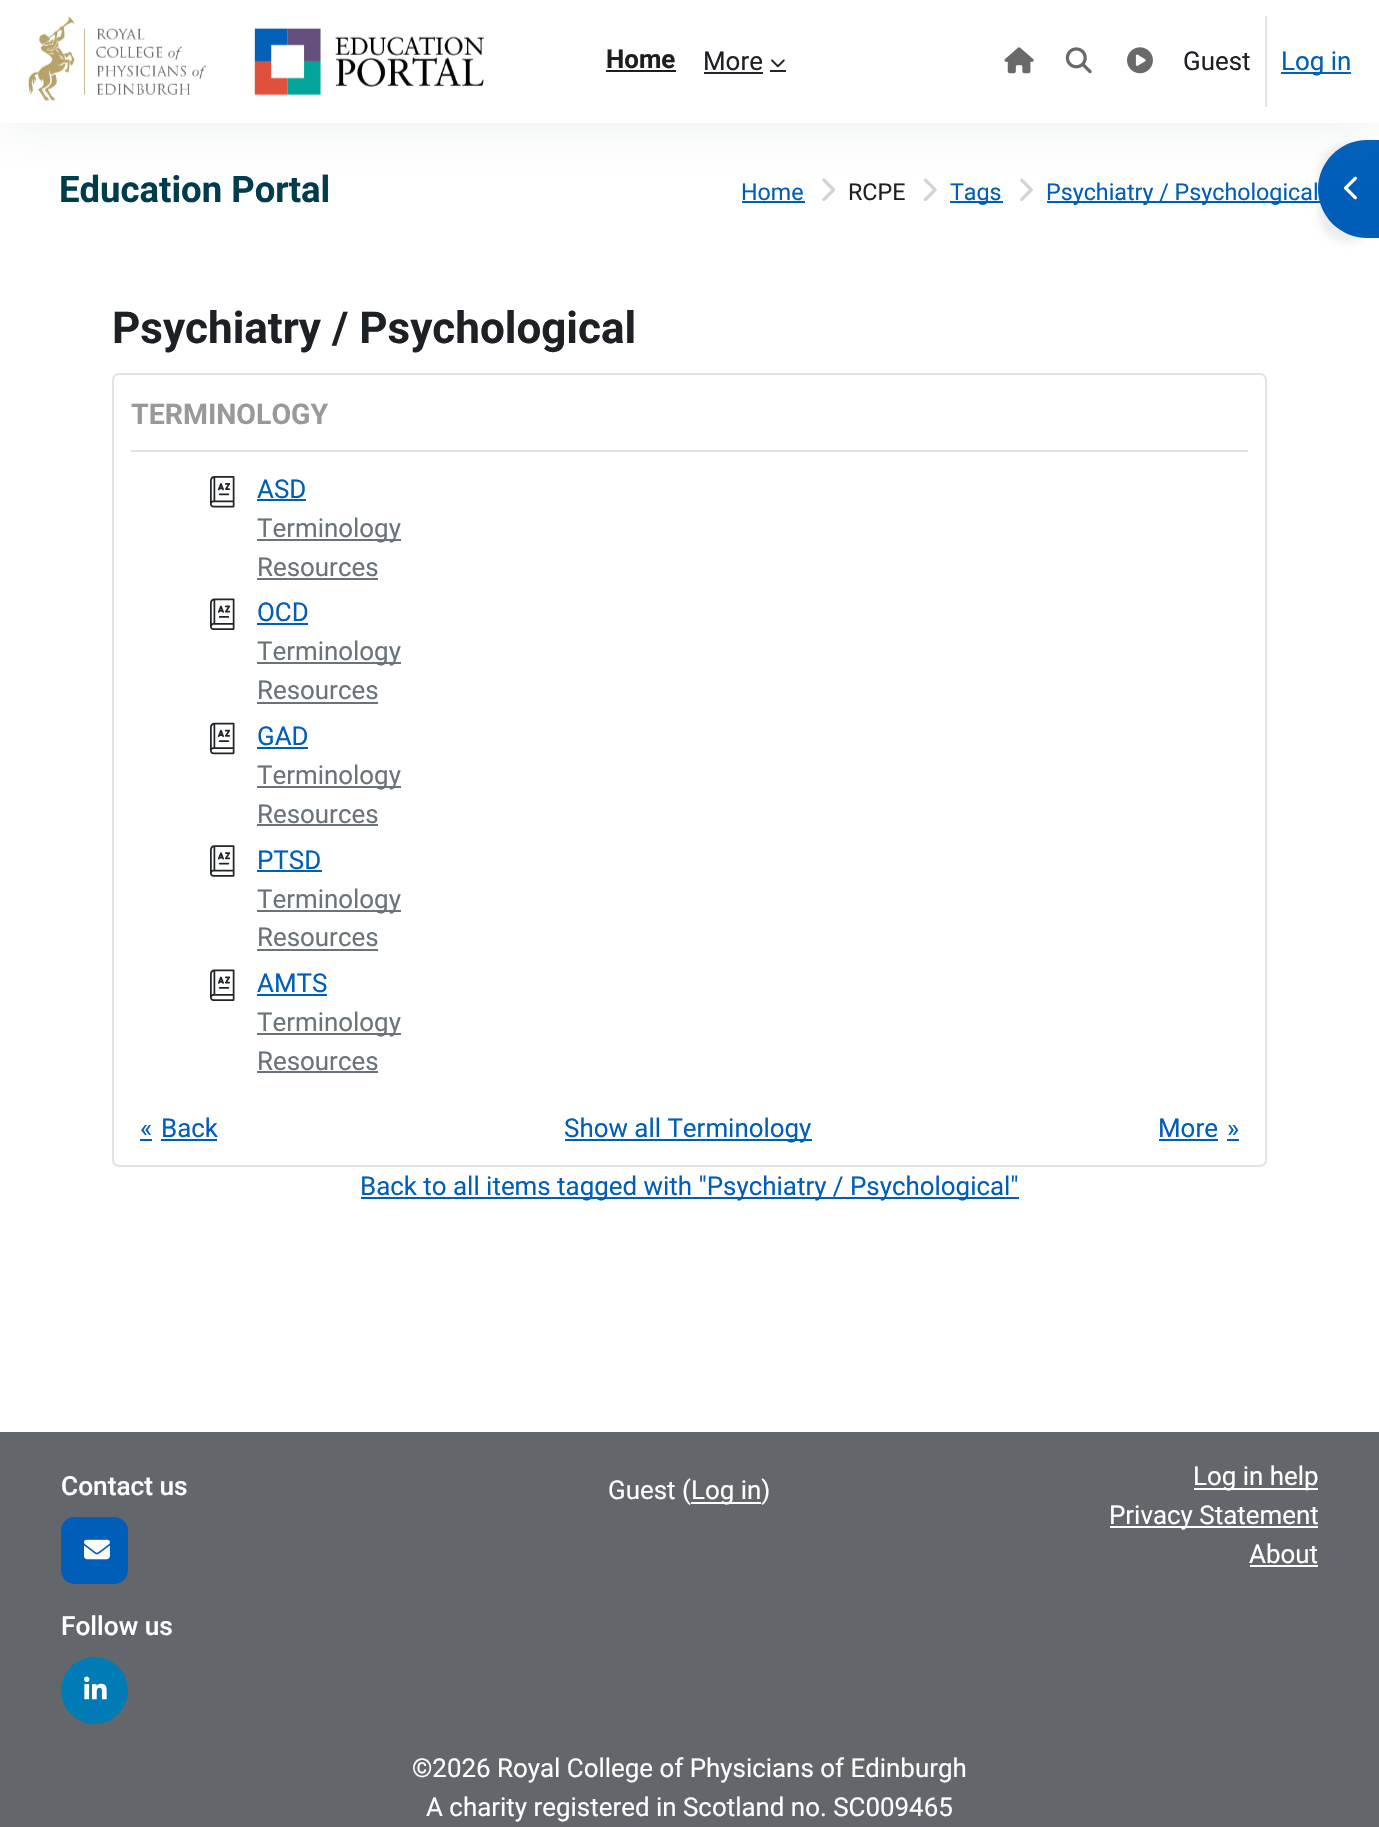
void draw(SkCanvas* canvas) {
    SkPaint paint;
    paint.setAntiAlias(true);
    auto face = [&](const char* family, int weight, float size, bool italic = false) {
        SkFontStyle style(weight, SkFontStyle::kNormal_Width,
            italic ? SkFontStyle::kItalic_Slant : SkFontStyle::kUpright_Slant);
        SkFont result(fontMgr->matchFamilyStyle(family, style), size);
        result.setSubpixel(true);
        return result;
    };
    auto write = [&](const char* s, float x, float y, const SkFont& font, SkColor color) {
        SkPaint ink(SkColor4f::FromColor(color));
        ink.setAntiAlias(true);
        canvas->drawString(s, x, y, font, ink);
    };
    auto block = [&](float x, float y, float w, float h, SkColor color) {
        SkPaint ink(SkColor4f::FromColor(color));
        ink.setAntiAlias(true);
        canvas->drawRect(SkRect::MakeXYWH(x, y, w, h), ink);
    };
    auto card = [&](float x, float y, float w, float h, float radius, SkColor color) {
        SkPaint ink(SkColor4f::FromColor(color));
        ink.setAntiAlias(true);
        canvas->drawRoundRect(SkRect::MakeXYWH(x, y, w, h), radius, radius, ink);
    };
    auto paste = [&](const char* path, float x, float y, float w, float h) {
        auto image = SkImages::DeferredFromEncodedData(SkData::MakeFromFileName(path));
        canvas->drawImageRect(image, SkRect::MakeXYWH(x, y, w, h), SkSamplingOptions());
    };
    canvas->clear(SK_ColorWHITE);
    paste("pic6.png", 822, 178, 14, 23);
    paste("pic7.png", 923, 178, 14, 23);
    paste("pic8.png", 1020, 178, 13, 23);
    block(1047, 201, 273, 2, SkColorSetRGB(0, 94, 184));
    paint.setColor(SkColorSetARGB(18, 0, 0, 0));
    paint.setMaskFilter(SkMaskFilter::MakeBlur(kNormal_SkBlurStyle, 3.5f));
    canvas->drawRoundRect(SkRect::MakeXYWH(1318, 144, 61, 98), 49, 49, paint);
    paint.setMaskFilter(nullptr);
    paint.setColor(SkColorSetRGB(0, 94, 184));
    canvas->drawPath(SkPathBuilder().moveTo(1367, 140).lineTo(1379, 140).lineTo(1379, 238).lineTo(1367, 238).cubicTo(1340, 238, 1318, 216, 1318, 189).cubicTo(1318, 162, 1340, 140, 1367, 140).close().detach(), paint);
    paste("pic9.png", 1344, 176, 13, 24);
    paint.setColor(SkColorSetARGB(33, 140, 152, 164));
    paint.setMaskFilter(SkMaskFilter::MakeBlur(kNormal_SkBlurStyle, 21));
    canvas->drawRect(SkRect::MakeXYWH(0, 11, 1379, 122), paint);
    paint.setMaskFilter(nullptr);
    block(0, 0, 1379, 123, SK_ColorWHITE);
    paste("pic1.png", 28, 16, 456, 85);
    auto kFont1 = face("Roboto", 700, 25.9f);
    write("Home", 606, 68, kFont1, SkColorSetRGB(30, 30, 30));
    block(606, 70, 70, 2, SkColorSetRGB(30, 30, 30));
    auto kFont2 = face("Roboto", 400, 25.9f);
    write("More", 703, 70, kFont2, SkColorSetRGB(29, 33, 37));
    block(704, 72, 59, 2, SkColorSetRGB(34, 37, 41));
    block(770, 70, 16, 2, SkColorSetRGB(34, 37, 41));
    paste("pic2.png", 771, 59, 14, 9);
    paste("pic3.png", 1004, 47, 30, 27);
    paste("pic4.png", 1065, 47, 27, 27);
    paste("pic5.png", 1127, 47, 26, 27);
    write("Guest", 1183, 70, kFont2, SkColorSetRGB(29, 33, 37));
    block(1265, 16, 2, 91, SkColorSetRGB(223, 227, 231));
    block(1281, 72, 70, 2, SkColorSetRGB(5, 97, 185));
    write("Log in", 1281, 70, kFont2, SkColorSetRGB(0, 94, 184));
    auto kFont3 = face("Roboto", 700, 36.5f);
    write("Education Portal", 59, 202, kFont3, SkColorSetRGB(0, 61, 76));
    auto kFont4 = face("Roboto", 400, 23.25f);
    write("Home", 741, 200, kFont4, SkColorSetRGB(0, 94, 184));
    block(742, 201, 63, 2, SkColorSetRGB(0, 94, 184));
    write("RCPE", 848, 200, kFont4, SkColorSetRGB(29, 33, 37));
    block(950, 201, 53, 2, SkColorSetRGB(0, 94, 184));
    write("Tags", 950, 200, kFont4, SkColorSetRGB(0, 94, 184));
    write("Psychiatry / Psychological", 1046, 200, kFont4, SkColorSetRGB(0, 94, 184));
    auto kFont5 = face("Roboto", 700, 44);
    write("Psychiatry / Psychological", 112, 343, kFont5, SkColorSetRGB(29, 33, 37));
    paint.setStyle(SkPaint::kStroke_Style);
    paint.setStrokeWidth(2);
    paint.setColor(SkColorSetRGB(227, 227, 227));
    canvas->drawRoundRect(SkRect::MakeXYWH(113, 374, 1153, 792), 6, 6, paint);
    block(131, 450, 1117, 2, SkColorSetRGB(227, 227, 227));
    auto kFont6 = face("Roboto", 700, 28.5f);
    write("TERMINOLOGY", 131, 424, kFont6, SkColorSetRGB(153, 153, 153));
    paste("pic10.png", 210, 476, 25, 32);
    write("ASD", 257, 498, kFont2, SkColorSetRGB(0, 94, 184));
    block(257, 499, 49, 2, SkColorSetRGB(0, 94, 184));
    block(257, 539, 144, 2, SkColorSetRGB(106, 115, 123));
    write("Terminology", 257, 537, kFont2, SkColorSetRGB(106, 115, 123));
    write("Resources", 257, 576, kFont2, SkColorSetRGB(106, 115, 123));
    block(257, 578, 121, 2, SkColorSetRGB(106, 115, 123));
    paste("pic11.png", 210, 598, 25, 32);
    write("OCD", 257, 621, kFont2, SkColorSetRGB(0, 94, 184));
    block(257, 623, 51, 2, SkColorSetRGB(0, 94, 184));
    block(257, 662, 144, 2, SkColorSetRGB(106, 115, 123));
    write("Terminology", 257, 660, kFont2, SkColorSetRGB(106, 115, 123));
    write("Resources", 257, 699, kFont2, SkColorSetRGB(106, 115, 123));
    block(257, 702, 121, 2, SkColorSetRGB(106, 115, 123));
    paste("pic12.png", 210, 722, 25, 33);
    write("GAD", 257, 745, kFont2, SkColorSetRGB(0, 94, 184));
    block(257, 747, 51, 2, SkColorSetRGB(0, 94, 184));
    block(257, 786, 144, 2, SkColorSetRGB(106, 115, 123));
    write("Terminology", 257, 784, kFont2, SkColorSetRGB(106, 115, 123));
    write("Resources", 257, 823, kFont2, SkColorSetRGB(106, 115, 123));
    block(257, 824, 121, 2, SkColorSetRGB(106, 115, 123));
    paste("pic13.png", 210, 845, 25, 32);
    write("PTSD", 257, 869, kFont2, SkColorSetRGB(0, 94, 184));
    block(257, 870, 65, 2, SkColorSetRGB(0, 94, 184));
    block(257, 910, 144, 2, SkColorSetRGB(106, 115, 123));
    write("Terminology", 257, 908, kFont2, SkColorSetRGB(106, 115, 123));
    write("Resources", 257, 946, kFont2, SkColorSetRGB(106, 115, 123));
    block(257, 949, 121, 2, SkColorSetRGB(106, 115, 123));
    paste("pic11.png", 210, 969, 25, 32);
    write("AMTS", 257, 992, kFont2, SkColorSetRGB(0, 94, 184));
    block(257, 994, 70, 2, SkColorSetRGB(0, 94, 184));
    block(257, 1033, 144, 2, SkColorSetRGB(106, 115, 123));
    write("Terminology", 257, 1031, kFont2, SkColorSetRGB(106, 115, 123));
    write("Resources", 257, 1070, kFont2, SkColorSetRGB(106, 115, 123));
    block(257, 1071, 121, 2, SkColorSetRGB(106, 115, 123));
    write("«", 140, 1137, kFont2, SkColorSetRGB(0, 94, 184));
    block(140, 1139, 12, 2, SkColorSetRGB(0, 94, 184));
    write("Back", 161, 1137, kFont2, SkColorSetRGB(0, 94, 184));
    block(161, 1139, 56, 2, SkColorSetRGB(0, 94, 184));
    block(565, 1139, 247, 2, SkColorSetRGB(0, 94, 184));
    write("Show all Terminology", 564, 1137, kFont2, SkColorSetRGB(0, 94, 184));
    write("More", 1158, 1137, kFont2, SkColorSetRGB(0, 94, 184));
    block(1159, 1139, 59, 2, SkColorSetRGB(0, 94, 184));
    write("»", 1227, 1137, kFont2, SkColorSetRGB(0, 94, 184));
    block(1227, 1139, 12, 2, SkColorSetRGB(0, 94, 184));
    block(361, 1197, 658, 2, SkColorSetRGB(0, 94, 184));
    write("Back to all items tagged with \"Psychiatry / Psychological\"", 360, 1195, kFont2, SkColorSetRGB(0, 94, 184));
    block(0, 1432, 1379, 395, SkColorSetRGB(99, 102, 106));
    auto kFont7 = face("Roboto", 500, 26.25f);
    write("Contact us", 61, 1495, kFont7, SK_ColorWHITE);
    card(61, 1517, 67, 67, 14, SkColorSetRGB(0, 94, 184));
    paste("pic14.png", 84, 1539, 26, 21);
    write("Follow us", 61, 1635, kFont7, SK_ColorWHITE);
    paint.setStyle(SkPaint::kFill_Style);
    paint.setColor(SkColorSetRGB(0, 123, 181));
    canvas->drawCircle(94.5f, 1690.5f, 33.5f, paint);
    paste("pic15.png", 84, 1676, 23, 24);
    write("Guest (", 608, 1499, kFont2, SK_ColorWHITE);
    block(691, 1502, 70, 2, SK_ColorWHITE);
    write("Log in)", 691, 1499, kFont2, SK_ColorWHITE);
    block(1194, 1488, 124, 2, SK_ColorWHITE);
    write("Log in help", 1193, 1485, kFont2, SK_ColorWHITE);
    block(1110, 1526, 208, 2, SK_ColorWHITE);
    write("Privacy Statement", 1109, 1524, kFont2, SK_ColorWHITE);
    write("About", 1249, 1563, kFont2, SK_ColorWHITE);
    block(1250, 1565, 68, 2, SK_ColorWHITE);
    write("©2026 Royal College of Physicians of Edinburgh", 412, 1777, kFont2, SK_ColorWHITE);
    write("A charity registered in Scotland no. SC009465", 426, 1816, kFont2, SK_ColorWHITE);
}
